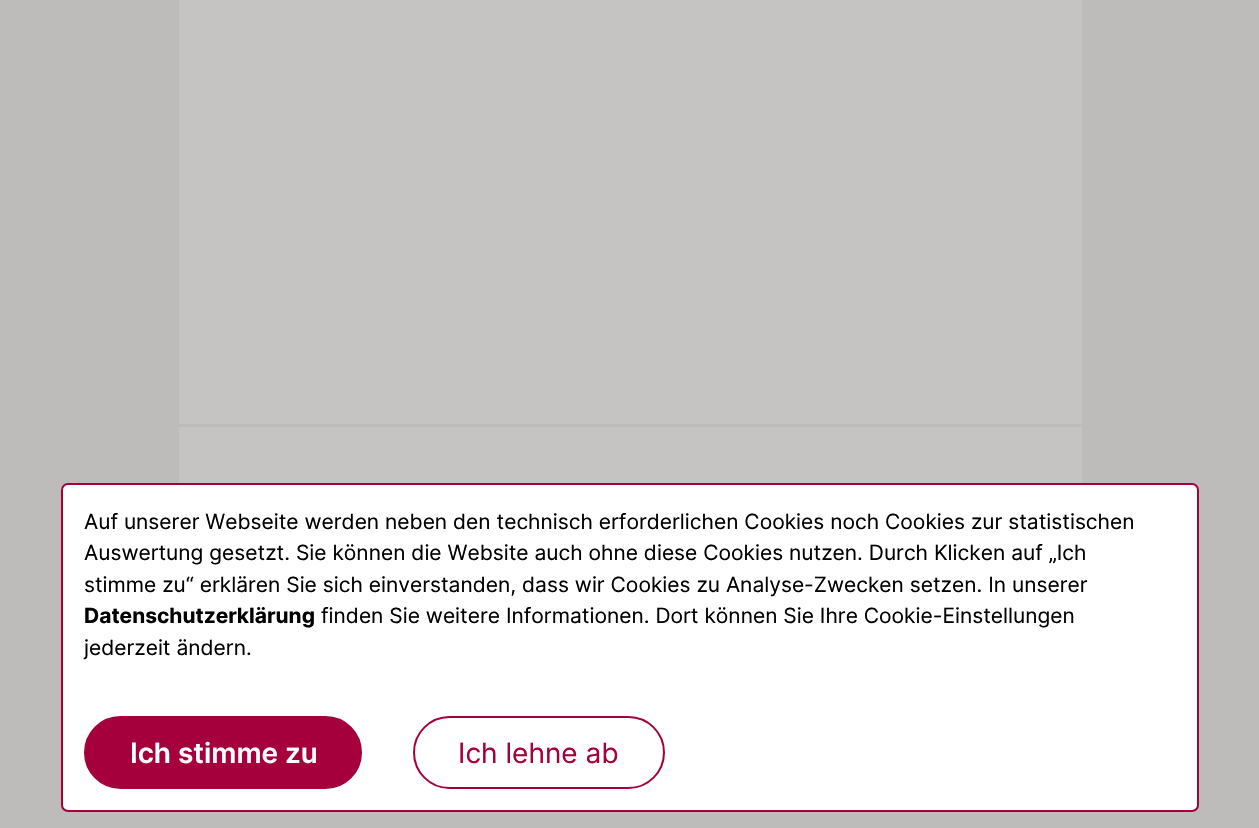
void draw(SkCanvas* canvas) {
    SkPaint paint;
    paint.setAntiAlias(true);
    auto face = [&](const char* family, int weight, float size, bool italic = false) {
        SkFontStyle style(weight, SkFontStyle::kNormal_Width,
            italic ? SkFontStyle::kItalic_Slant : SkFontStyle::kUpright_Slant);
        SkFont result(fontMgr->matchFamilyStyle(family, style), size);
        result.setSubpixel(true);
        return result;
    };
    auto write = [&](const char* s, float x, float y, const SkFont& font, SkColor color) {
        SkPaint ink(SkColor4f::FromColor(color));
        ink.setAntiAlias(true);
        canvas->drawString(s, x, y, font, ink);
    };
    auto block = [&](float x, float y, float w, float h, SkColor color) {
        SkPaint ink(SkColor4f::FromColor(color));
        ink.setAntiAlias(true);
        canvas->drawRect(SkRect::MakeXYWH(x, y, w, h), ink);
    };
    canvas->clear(SkColorSetRGB(189, 188, 187));
    block(179, 0, 903, 424, SkColorSetRGB(197, 196, 195));
    block(179, 427, 903, 56, SkColorSetRGB(197, 196, 195));
    paint.setColor(SK_ColorWHITE);
    canvas->drawRoundRect(SkRect::MakeXYWH(62, 484, 1136, 327), 6, 6, paint);
    paint.setStyle(SkPaint::kStroke_Style);
    paint.setStrokeWidth(2);
    paint.setColor(SkColorSetRGB(165, 0, 59));
    canvas->drawRoundRect(SkRect::MakeXYWH(62, 484, 1136, 327), 6, 6, paint);
    auto kFont1 = face("Inter", 400, 21);
    write("Auf unserer Webseite werden neben den technisch erforderlichen Cookies noch Cookies zur statistischen", 84, 529, kFont1, SK_ColorBLACK);
    write("Auswertung gesetzt. Sie können die Website auch ohne diese Cookies nutzen. Durch Klicken auf „Ich", 84, 560, kFont1, SK_ColorBLACK);
    write("stimme zu“ erklären Sie sich einverstanden, dass wir Cookies zu Analyse-Zwecken setzen. In unserer", 84, 592, kFont1, SK_ColorBLACK);
    auto kFont2 = face("Inter", 700, 21);
    write("Datenschutzerklärung", 84, 623, kFont2, SK_ColorBLACK);
    write("finden Sie weitere Informationen. Dort können Sie Ihre Cookie-Einstellungen", 321, 623, kFont1, SK_ColorBLACK);
    write("jederzeit ändern.", 84, 655, kFont1, SK_ColorBLACK);
    paint.setStyle(SkPaint::kFill_Style);
    canvas->drawRoundRect(SkRect::MakeXYWH(85, 717, 276, 71), 35.5f, 35.5f, paint);
    paint.setStyle(SkPaint::kStroke_Style);
    canvas->drawRoundRect(SkRect::MakeXYWH(85, 717, 276, 71), 35.5f, 35.5f, paint);
    auto kFont3 = face("Inter", 600, 28);
    write("Ich stimme zu", 130, 763, kFont3, SK_ColorWHITE);
    canvas->drawRoundRect(SkRect::MakeXYWH(414, 717, 250, 71), 35.5f, 35.5f, paint);
    auto kFont4 = face("Inter", 400, 28);
    write("Ich lehne ab", 458, 763, kFont4, SkColorSetRGB(165, 0, 59));
}
